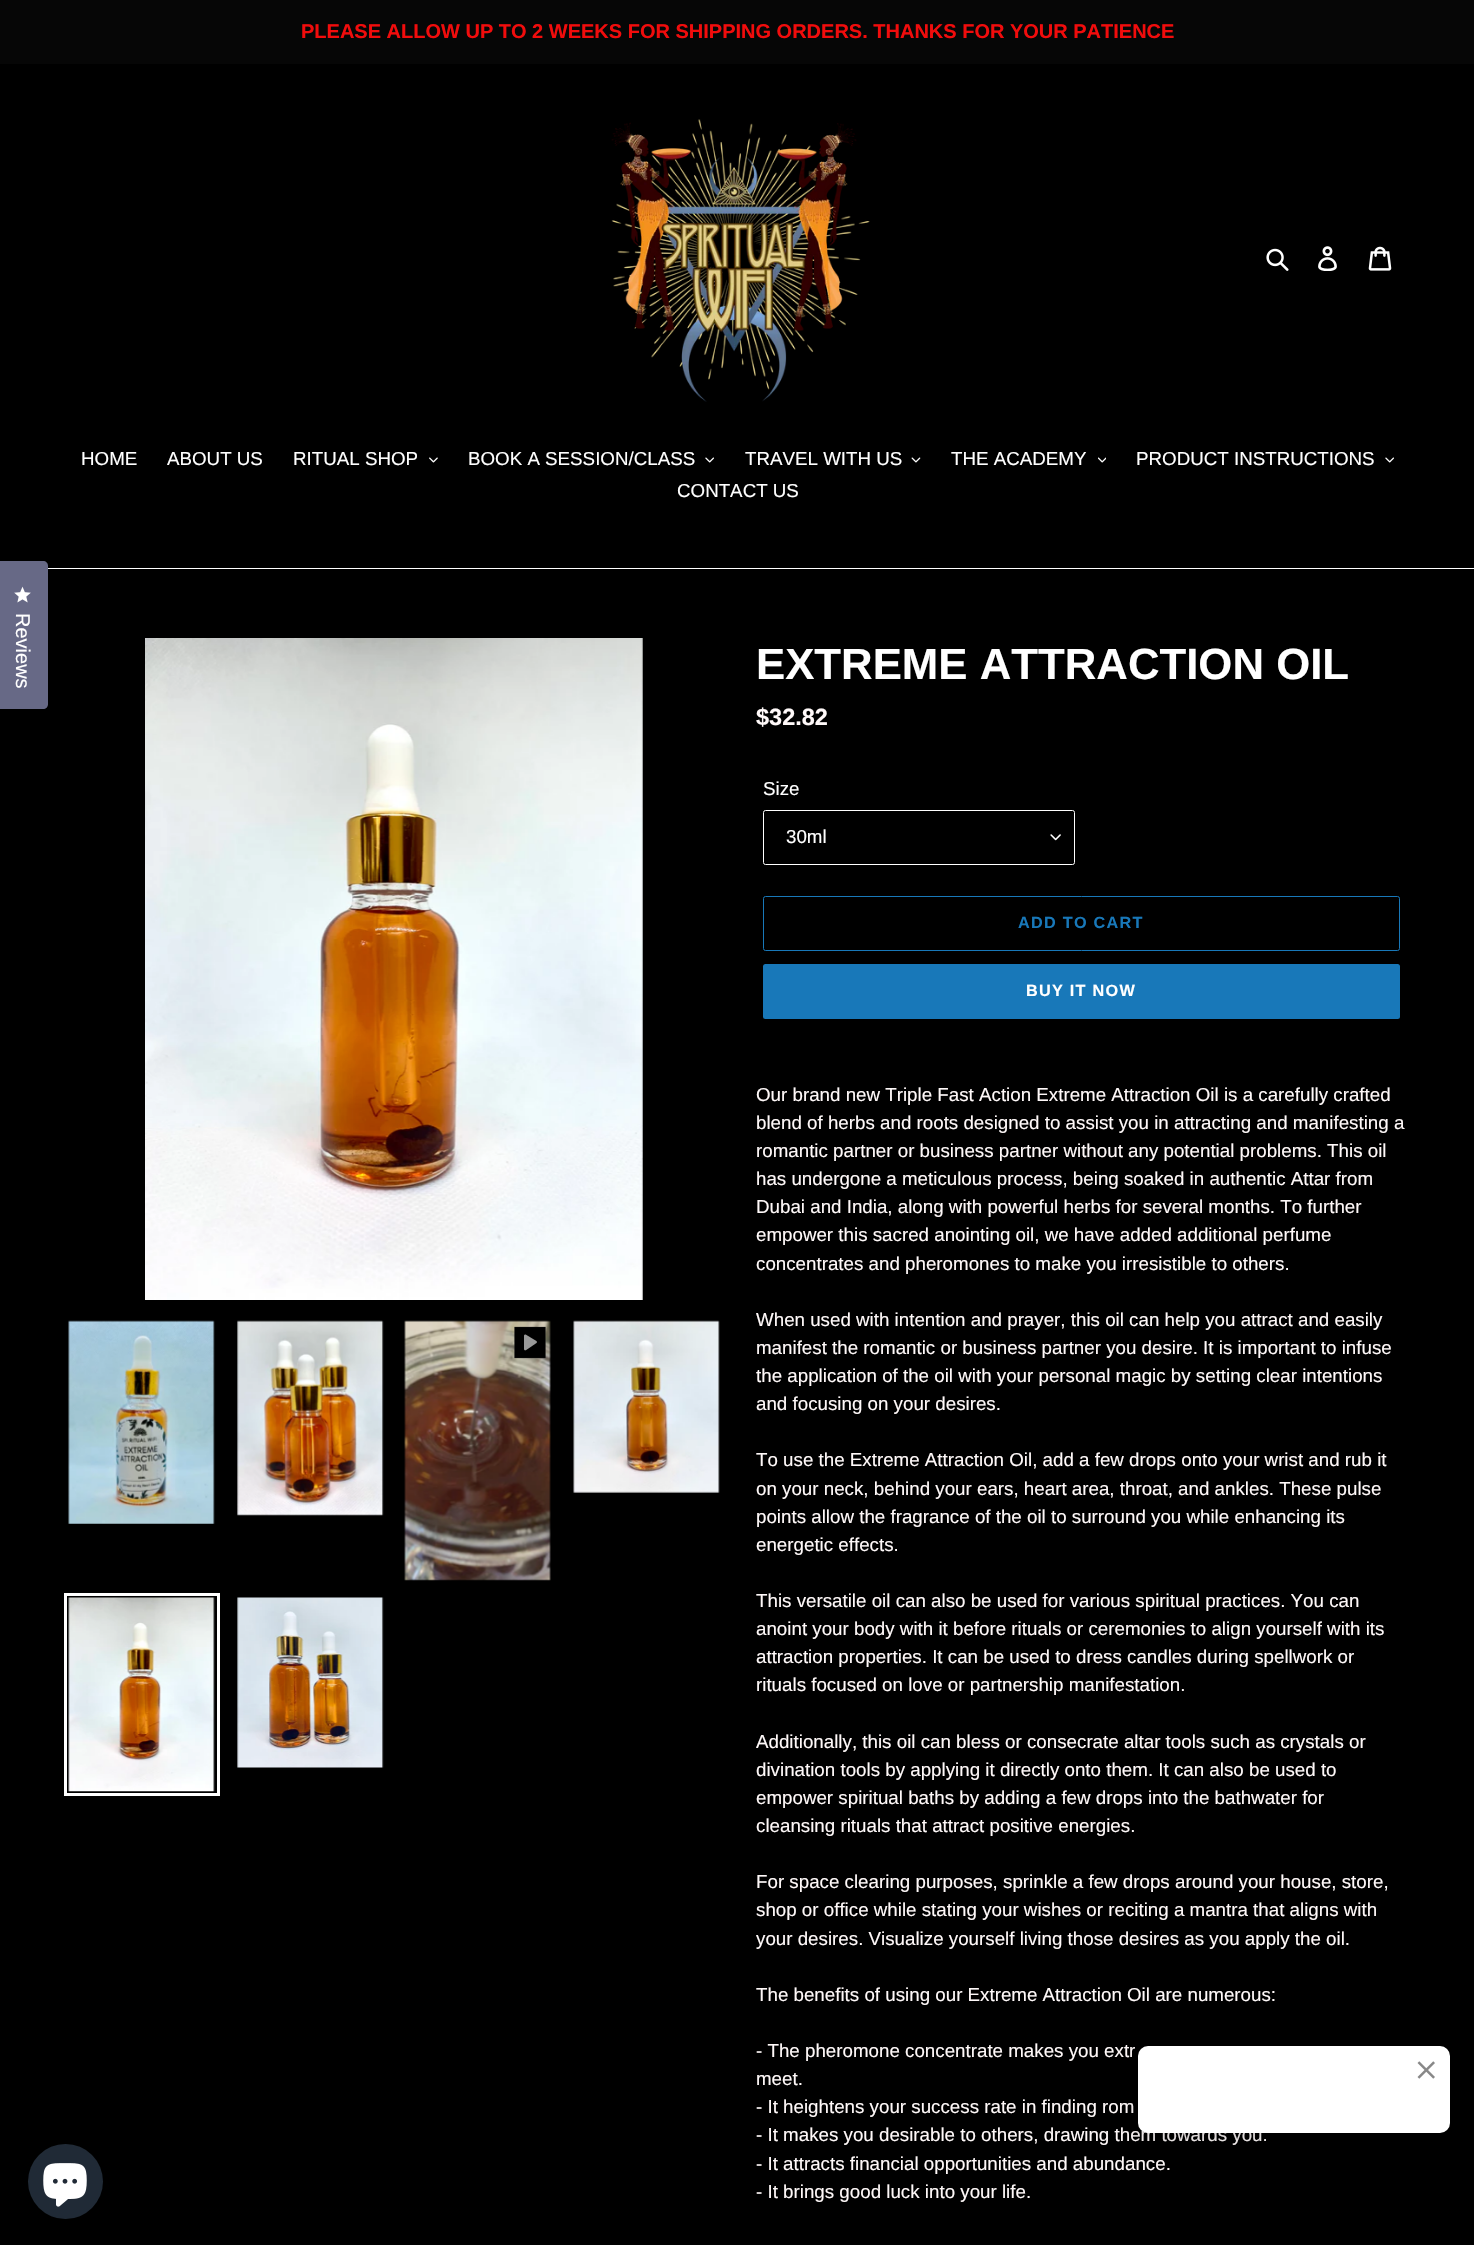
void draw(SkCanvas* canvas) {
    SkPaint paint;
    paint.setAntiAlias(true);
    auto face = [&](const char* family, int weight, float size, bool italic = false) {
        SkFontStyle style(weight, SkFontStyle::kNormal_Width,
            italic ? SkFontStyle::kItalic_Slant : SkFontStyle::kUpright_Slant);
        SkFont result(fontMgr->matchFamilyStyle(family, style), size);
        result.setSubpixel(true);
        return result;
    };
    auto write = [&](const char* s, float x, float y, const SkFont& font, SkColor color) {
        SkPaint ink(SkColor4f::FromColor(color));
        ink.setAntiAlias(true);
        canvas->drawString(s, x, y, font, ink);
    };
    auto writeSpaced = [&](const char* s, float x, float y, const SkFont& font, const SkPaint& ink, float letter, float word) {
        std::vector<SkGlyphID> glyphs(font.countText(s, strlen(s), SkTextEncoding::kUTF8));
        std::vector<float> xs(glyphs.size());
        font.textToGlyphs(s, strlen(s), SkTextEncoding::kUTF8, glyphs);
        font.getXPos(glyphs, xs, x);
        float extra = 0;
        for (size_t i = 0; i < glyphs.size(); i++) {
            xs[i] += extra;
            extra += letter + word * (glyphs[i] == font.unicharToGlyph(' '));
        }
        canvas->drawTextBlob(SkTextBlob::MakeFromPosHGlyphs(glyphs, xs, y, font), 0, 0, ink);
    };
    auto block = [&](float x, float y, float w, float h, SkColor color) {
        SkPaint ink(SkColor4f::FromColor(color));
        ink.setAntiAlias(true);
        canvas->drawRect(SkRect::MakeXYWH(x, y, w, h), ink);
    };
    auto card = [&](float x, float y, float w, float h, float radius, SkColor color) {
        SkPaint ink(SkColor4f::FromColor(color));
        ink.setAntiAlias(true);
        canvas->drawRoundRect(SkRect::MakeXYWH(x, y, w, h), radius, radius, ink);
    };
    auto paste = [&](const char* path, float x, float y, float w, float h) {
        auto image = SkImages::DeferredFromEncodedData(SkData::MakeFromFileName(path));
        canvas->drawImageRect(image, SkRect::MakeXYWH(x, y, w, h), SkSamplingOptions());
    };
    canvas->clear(SK_ColorBLACK);
    block(0, 0, 1474, 64, SkColorSetRGB(6, 6, 6));
    auto kFont1 = face("Liberation Sans", 700, 20);
    write("PLEASE ALLOW UP TO 2 WEEKS FOR SHIPPING ORDERS. THANKS FOR YOUR PATIENCE", 301, 38, kFont1, SkColorSetRGB(241, 12, 12));
    paste("pic1.png", 611, 119, 259, 283);
    paste("pic2.png", 1266, 248, 23, 23);
    paste("pic3.png", 1318, 246, 19, 25);
    paste("pic4.png", 1368, 246, 24, 25);
    block(48, 568, 1426, 1, SK_ColorWHITE);
    auto kFont2 = face("Liberation Sans", 400, 18.75f);
    write("HOME", 81, 465, kFont2, SK_ColorWHITE);
    write("ABOUT US", 167, 465, kFont2, SK_ColorWHITE);
    write("RITUAL SHOP", 293, 465, kFont2, SK_ColorWHITE);
    paste("pic5.png", 429, 457, 9, 6);
    write("BOOK A SESSION/CLASS", 468, 465, kFont2, SK_ColorWHITE);
    paste("pic6.png", 705, 457, 9, 6);
    write("TRAVEL WITH US", 745, 465, kFont2, SK_ColorWHITE);
    paste("pic7.png", 911, 457, 10, 6);
    write("THE ACADEMY", 951, 465, kFont2, SK_ColorWHITE);
    paste("pic8.png", 1098, 457, 8, 6);
    write("PRODUCT INSTRUCTIONS", 1136, 465, kFont2, SK_ColorWHITE);
    paste("pic6.png", 1385, 457, 9, 6);
    write("CONTACT US", 677, 497, kFont2, SK_ColorWHITE);
    paint.setColor(SkColorSetRGB(103, 105, 134));
    canvas->drawPath(SkPathBuilder().moveTo(-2, 561).lineTo(43, 561).cubicTo(46, 561, 48, 563, 48, 566).lineTo(48, 704).cubicTo(48, 707, 46, 709, 43, 709).lineTo(-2, 709).close().detach(), paint);
    paste("pic9.png", 14, 586, 17, 17);
    auto kFont3 = face("Liberation Sans", 400, 20);
    canvas->save();
    canvas->rotate(90.1f, 16, 613);
    write("Reviews", 16, 613, kFont3, SK_ColorWHITE);
    canvas->restore();
    paste("pic10.png", 145, 638, 498, 662);
    paste("pic11.png", 68, 1320, 147, 204);
    paste("pic12.png", 237, 1320, 147, 196);
    paste("pic13.png", 404, 1320, 147, 261);
    paste("pic14.png", 514, 1326, 32, 33);
    paste("pic15.png", 573, 1320, 147, 173);
    paint.setStyle(SkPaint::kStroke_Style);
    paint.setStrokeWidth(3);
    paint.setColor(SK_ColorWHITE);
    canvas->drawRect(SkRect::MakeXYWH(65.5f, 1594.5f, 153, 200), paint);
    paste("pic16.png", 68, 1597, 147, 195);
    paste("pic17.png", 237, 1597, 147, 171);
    auto kFont4 = face("Liberation Sans", 700, 43.75f);
    write("EXTREME ATTRACTION OIL", 756, 679, kFont4, SK_ColorWHITE);
    auto kFont5 = face("Liberation Sans", 700, 23.5f);
    write("$32.82", 756, 725, kFont5, SkColorSetRGB(255, 249, 249));
    write("Size", 763, 795, kFont2, SK_ColorWHITE);
    paste("pic18.png", 1050, 834, 11, 7);
    paint.setStrokeWidth(1);
    canvas->drawRoundRect(SkRect::MakeXYWH(763.5f, 810.5f, 311, 54), 2, 2, paint);
    write("30ml", 786, 843, kFont2, SK_ColorWHITE);
    paint.setColor(SkColorSetRGB(24, 120, 185));
    canvas->drawRoundRect(SkRect::MakeXYWH(763.5f, 896.5f, 636, 54), 2, 2, paint);
    auto kFont6 = face("Liberation Sans", 700, 16.25f);
    paint.setStyle(SkPaint::kFill_Style);
    writeSpaced("ADD TO CART", 1018, 928, kFont6, paint, 1.25f, 0);
    card(763, 964, 637, 55, 2.5f, SkColorSetRGB(24, 120, 185));
    paint.setColor(SK_ColorWHITE);
    writeSpaced("BUY IT NOW", 1026, 996, kFont6, paint, 1.25f, 0);
    write("Our brand new Triple Fast Action Extreme Attraction Oil is a carefully crafted", 756, 1101, kFont2, SkColorSetRGB(255, 249, 249));
    write("blend of herbs and roots designed to assist you in attracting and manifesting a", 756, 1129, kFont2, SkColorSetRGB(255, 249, 249));
    write("romantic partner or business partner without any potential problems. This oil", 756, 1157, kFont2, SkColorSetRGB(255, 249, 249));
    write("has undergone a meticulous process, being soaked in authentic Attar from", 756, 1185, kFont2, SkColorSetRGB(255, 249, 249));
    write("Dubai and India, along with powerful herbs for several months. To further", 756, 1213, kFont2, SkColorSetRGB(255, 249, 249));
    write("empower this sacred anointing oil, we have added additional perfume", 756, 1241, kFont2, SkColorSetRGB(255, 249, 249));
    write("concentrates and pheromones to make you irresistible to others.", 756, 1270, kFont2, SkColorSetRGB(255, 249, 249));
    write("When used with intention and prayer, this oil can help you attract and easily", 756, 1326, kFont2, SkColorSetRGB(255, 249, 249));
    write("manifest the romantic or business partner you desire. It is important to infuse", 756, 1354, kFont2, SkColorSetRGB(255, 249, 249));
    write("the application of the oil with your personal magic by setting clear intentions", 756, 1382, kFont2, SkColorSetRGB(255, 249, 249));
    write("and focusing on your desires.", 756, 1410, kFont2, SkColorSetRGB(255, 249, 249));
    write("To use the Extreme Attraction Oil, add a few drops onto your wrist and rub it", 756, 1466, kFont2, SkColorSetRGB(255, 249, 249));
    write("on your neck, behind your ears, heart area, throat, and ankles. These pulse", 756, 1495, kFont2, SkColorSetRGB(255, 249, 249));
    write("points allow the fragrance of the oil to surround you while enhancing its", 756, 1523, kFont2, SkColorSetRGB(255, 249, 249));
    write("energetic effects.", 756, 1551, kFont2, SkColorSetRGB(255, 249, 249));
    write("This versatile oil can also be used for various spiritual practices. You can", 756, 1607, kFont2, SkColorSetRGB(255, 249, 249));
    write("anoint your body with it before rituals or ceremonies to align yourself with its", 756, 1635, kFont2, SkColorSetRGB(255, 249, 249));
    write("attraction properties. It can be used to dress candles during spellwork or", 756, 1663, kFont2, SkColorSetRGB(255, 249, 249));
    write("rituals focused on love or partnership manifestation.", 756, 1691, kFont2, SkColorSetRGB(255, 249, 249));
    write("Additionally, this oil can bless or consecrate altar tools such as crystals or", 756, 1748, kFont2, SkColorSetRGB(255, 249, 249));
    write("divination tools by applying it directly onto them. It can also be used to", 756, 1776, kFont2, SkColorSetRGB(255, 249, 249));
    write("empower spiritual baths by adding a few drops into the bathwater for", 756, 1804, kFont2, SkColorSetRGB(255, 249, 249));
    write("cleansing rituals that attract positive energies.", 756, 1832, kFont2, SkColorSetRGB(255, 249, 249));
    write("For space clearing purposes, sprinkle a few drops around your house, store,", 756, 1888, kFont2, SkColorSetRGB(255, 249, 249));
    write("shop or office while stating your wishes or reciting a mantra that aligns with", 756, 1916, kFont2, SkColorSetRGB(255, 249, 249));
    write("your desires. Visualize yourself living those desires as you apply the oil.", 756, 1945, kFont2, SkColorSetRGB(255, 249, 249));
    write("The benefits of using our Extreme Attraction Oil are numerous:", 756, 2001, kFont2, SkColorSetRGB(255, 249, 249));
    write("- The pheromone concentrate makes you extr", 756, 2057, kFont2, SkColorSetRGB(255, 249, 249));
    write("meet.", 756, 2085, kFont2, SkColorSetRGB(255, 249, 249));
    write("- It heightens your success rate in finding rom", 756, 2113, kFont2, SkColorSetRGB(255, 249, 249));
    write("- It makes you desirable to others, drawing them towards you.", 756, 2141, kFont2, SkColorSetRGB(255, 249, 249));
    write("- It attracts financial opportunities and abundance.", 756, 2170, kFont2, SkColorSetRGB(255, 249, 249));
    write("- It brings good luck into your life.", 756, 2198, kFont2, SkColorSetRGB(255, 249, 249));
    paint.setColor(SkColorSetARGB(51, 0, 0, 0));
    paint.setMaskFilter(SkMaskFilter::MakeBlur(kNormal_SkBlurStyle, 9.5f));
    canvas->drawRoundRect(SkRect::MakeXYWH(1138, 2053, 312, 86), 10, 10, paint);
    paint.setMaskFilter(nullptr);
    card(1138, 2046, 312, 87, 10, SK_ColorWHITE);
    paste("pic19.png", 1417, 2061, 18, 18);
    paint.setColor(SkColorSetRGB(32, 42, 54));
    canvas->drawCircle(65.5f, 2181.5f, 37.5f, paint);
    paste("pic20.png", 43, 2163, 44, 44);
}
